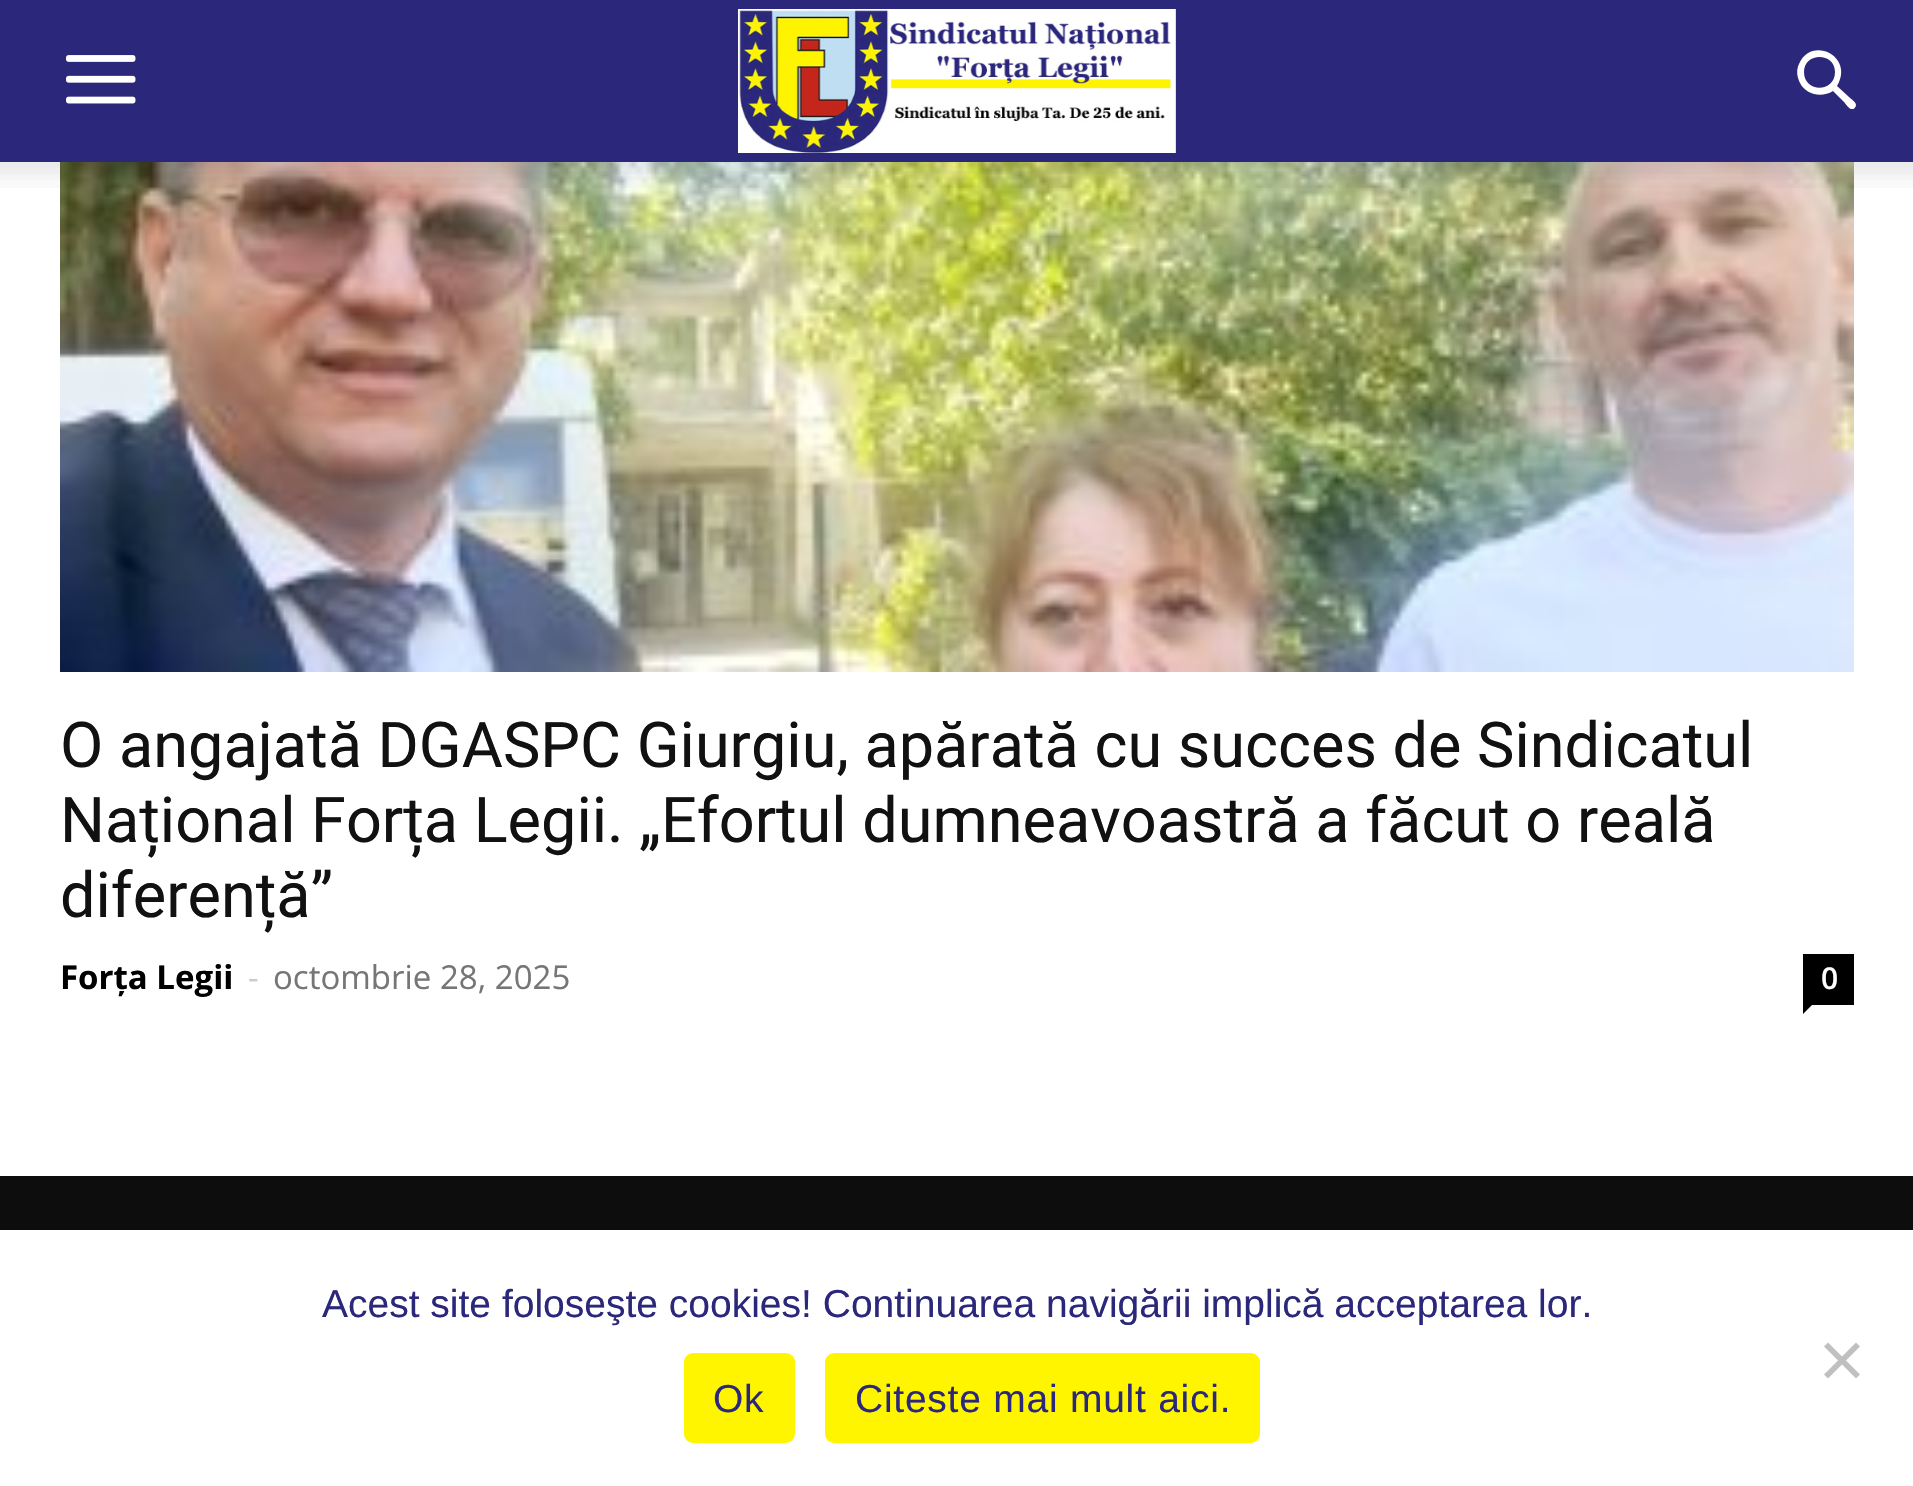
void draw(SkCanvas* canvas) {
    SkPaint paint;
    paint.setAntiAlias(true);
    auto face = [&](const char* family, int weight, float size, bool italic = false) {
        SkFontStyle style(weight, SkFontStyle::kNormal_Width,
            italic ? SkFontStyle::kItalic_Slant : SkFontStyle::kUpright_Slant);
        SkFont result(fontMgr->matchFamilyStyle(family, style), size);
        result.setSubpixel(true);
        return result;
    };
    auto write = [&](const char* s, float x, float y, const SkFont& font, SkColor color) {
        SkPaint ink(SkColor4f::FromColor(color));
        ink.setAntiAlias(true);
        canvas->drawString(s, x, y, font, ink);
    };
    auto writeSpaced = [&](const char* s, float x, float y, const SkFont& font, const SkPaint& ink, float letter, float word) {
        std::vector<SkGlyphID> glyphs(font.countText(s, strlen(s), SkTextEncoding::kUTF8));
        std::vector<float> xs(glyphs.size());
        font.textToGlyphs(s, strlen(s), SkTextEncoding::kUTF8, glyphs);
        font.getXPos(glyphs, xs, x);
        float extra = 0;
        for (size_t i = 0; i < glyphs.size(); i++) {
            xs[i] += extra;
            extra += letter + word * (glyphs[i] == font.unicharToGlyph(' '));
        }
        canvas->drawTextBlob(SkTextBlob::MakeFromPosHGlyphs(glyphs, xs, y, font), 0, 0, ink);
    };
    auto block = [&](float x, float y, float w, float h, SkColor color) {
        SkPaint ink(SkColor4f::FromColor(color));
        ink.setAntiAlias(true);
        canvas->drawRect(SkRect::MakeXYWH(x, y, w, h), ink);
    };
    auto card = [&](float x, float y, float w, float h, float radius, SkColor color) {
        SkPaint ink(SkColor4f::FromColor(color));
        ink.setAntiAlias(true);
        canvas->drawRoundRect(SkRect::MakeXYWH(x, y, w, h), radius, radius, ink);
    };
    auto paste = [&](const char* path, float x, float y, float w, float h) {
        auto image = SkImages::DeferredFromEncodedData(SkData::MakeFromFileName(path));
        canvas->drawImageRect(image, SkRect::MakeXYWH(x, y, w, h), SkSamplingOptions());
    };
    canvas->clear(SK_ColorWHITE);
    block(0, 0, 1913, 162, SkColorSetRGB(43, 39, 123));
    paste("pic1.png", 66, 55, 70, 49);
    paste("pic2.png", 738, 9, 438, 144);
    paint.setColor(SK_ColorWHITE);
    canvas->drawPath(SkPathBuilder().moveTo(1835, 72).cubicTo(1835, 93, 1804, 93, 1804, 72).cubicTo(1804, 52, 1835, 52, 1835, 72).close().moveTo(1856, 105).cubicTo(1856, 102, 1851, 99, 1849, 97).lineTo(1837, 86).cubicTo(1855, 56, 1811, 35, 1799, 64).cubicTo(1796, 70, 1797, 77, 1800, 83).cubicTo(1806, 95, 1822, 98, 1833, 91).lineTo(1844, 102).cubicTo(1846, 104, 1849, 110, 1853, 109).cubicTo(1854, 109, 1856, 107, 1856, 105).close().detach(), paint);
    paste("pic4.png", 60, 162, 1794, 510);
    paste("pic3.png", 0, 162, 1913, 26);
    auto kFont1 = face("Roboto", 400, 63);
    write("O angajată DGASPC Giurgiu, apărată cu succes de Sindicatul", 60, 767, kFont1, SkColorSetRGB(17, 17, 17));
    write("Național Forța Legii. „Efortul dumneavoastră a făcut o reală", 60, 842, kFont1, SkColorSetRGB(17, 17, 17));
    write("diferență”", 60, 917, kFont1, SkColorSetRGB(17, 17, 17));
    auto kFont2 = face("Open Sans", 700, 33);
    write("Forța Legii", 60, 989, kFont2, SK_ColorBLACK);
    auto kFont3 = face("Open Sans", 400, 33);
    write("-", 248, 989, kFont3, SkColorSetRGB(204, 204, 204));
    write("octombrie 28, 2025", 273, 989, kFont3, SkColorSetRGB(118, 118, 118));
    block(1803, 954, 51, 51, SK_ColorBLACK);
    auto kFont4 = face("Open Sans", 600, 30);
    write("0", 1821, 989, kFont4, SK_ColorWHITE);
    paint.setColor(SK_ColorBLACK);
    canvas->drawPath(SkPathBuilder().moveTo(1803, 1005).lineTo(1812, 1005).lineTo(1803, 1014).close().detach(), paint);
    block(0, 1176, 1913, 54, SkColorSetRGB(13, 13, 13));
    auto kFont5 = face("Liberation Sans", 400, 39);
    write("Acest site foloseşte cookies! Continuarea navigării implică acceptarea lor.", 322, 1317, kFont5, SkColorSetRGB(43, 39, 123));
    paint.setColor(SkColorSetRGB(192, 192, 192));
    canvas->drawPath(SkPathBuilder().moveTo(1856, 1342.5f).lineTo(1860, 1346.5f).lineTo(1828, 1378.5f).lineTo(1824, 1374.5f).close().detach(), paint);
    canvas->drawPath(SkPathBuilder().moveTo(1824, 1346.5f).lineTo(1828, 1342.5f).lineTo(1860, 1374.5f).lineTo(1856, 1378.5f).close().detach(), paint);
    card(684, 1353, 111, 90, 9, SkColorSetRGB(255, 245, 0));
    paint.setColor(SkColorSetRGB(43, 39, 123));
    writeSpaced("Ok", 713, 1412, kFont5, paint, 0.75f, 0);
    card(825, 1353, 435, 90, 9, SkColorSetRGB(255, 245, 0));
    writeSpaced("Citeste mai mult aici.", 855, 1412, kFont5, paint, 0.75f, 0);
}
